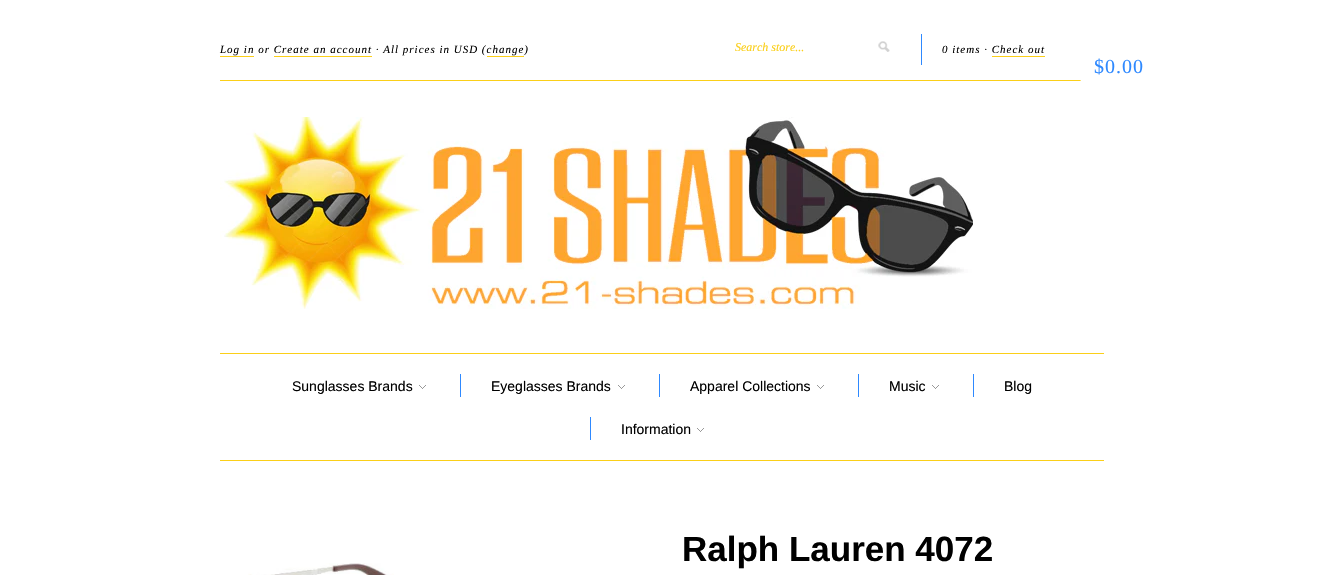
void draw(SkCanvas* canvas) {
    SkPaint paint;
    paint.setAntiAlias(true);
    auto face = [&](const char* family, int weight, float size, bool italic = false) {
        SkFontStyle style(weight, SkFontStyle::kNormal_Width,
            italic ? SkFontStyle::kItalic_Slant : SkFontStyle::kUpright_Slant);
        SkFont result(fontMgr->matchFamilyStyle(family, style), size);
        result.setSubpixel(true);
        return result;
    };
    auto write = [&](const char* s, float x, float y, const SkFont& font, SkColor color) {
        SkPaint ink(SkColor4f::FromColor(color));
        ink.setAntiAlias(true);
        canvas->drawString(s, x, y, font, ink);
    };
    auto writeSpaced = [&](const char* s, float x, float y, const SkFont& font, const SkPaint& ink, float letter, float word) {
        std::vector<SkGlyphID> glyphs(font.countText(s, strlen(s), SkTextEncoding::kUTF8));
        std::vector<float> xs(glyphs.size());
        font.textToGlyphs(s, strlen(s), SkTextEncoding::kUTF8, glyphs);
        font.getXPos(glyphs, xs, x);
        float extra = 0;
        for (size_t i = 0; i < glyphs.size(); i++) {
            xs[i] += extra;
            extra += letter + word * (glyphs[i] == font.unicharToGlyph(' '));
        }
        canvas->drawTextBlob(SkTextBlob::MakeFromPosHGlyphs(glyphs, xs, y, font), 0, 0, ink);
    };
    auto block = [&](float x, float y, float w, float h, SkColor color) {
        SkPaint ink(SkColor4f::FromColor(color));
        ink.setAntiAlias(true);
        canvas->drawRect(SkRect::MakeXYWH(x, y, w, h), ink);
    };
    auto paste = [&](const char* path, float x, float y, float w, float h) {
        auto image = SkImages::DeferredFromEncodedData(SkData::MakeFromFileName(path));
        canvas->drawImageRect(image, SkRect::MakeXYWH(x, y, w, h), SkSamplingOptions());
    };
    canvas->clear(SK_ColorWHITE);
    block(220, 460, 884, 1, SkColorSetRGB(251, 207, 24));
    block(220, 80, 861, 1, SkColorSetRGB(251, 207, 24));
    auto kFont1 = face("Liberation Serif", 400, 11, true);
    paint.setColor(SK_ColorBLACK);
    writeSpaced("Log in or Create an account · All prices in USD (change)", 220, 53, kFont1, paint, 1, 0);
    block(220, 56, 34, 1, SkColorSetRGB(251, 207, 24));
    block(274, 56, 98, 1, SkColorSetRGB(251, 207, 24));
    auto kFont2 = face("Liberation Serif", 400, 12, true);
    write("Search store...", 735, 51, kFont2, SkColorSetRGB(251, 207, 24));
    paste("pic1.png", 878, 41, 12, 11);
    block(921, 34, 1, 31, SkColorSetRGB(46, 137, 255));
    writeSpaced("0 items · Check out", 942, 53, kFont1, paint, 1, 0);
    block(992, 56, 53, 1, SkColorSetRGB(251, 207, 24));
    block(487, 56, 37, 1, SkColorSetRGB(251, 207, 24));
    paint.setColor(SK_ColorWHITE);
    canvas->drawCircle(1118.5f, 66.5f, 40.5f, paint);
    auto kFont3 = face("Liberation Serif", 400, 20);
    paint.setColor(SkColorSetRGB(46, 137, 255));
    writeSpaced("$0.00", 1094, 73, kFont3, paint, 1, 0);
    paste("pic2.png", 220, 117, 753, 192);
    block(220, 353, 884, 1, SkColorSetRGB(251, 207, 24));
    auto kFont4 = face("Liberation Sans", 400, 14);
    write("Sunglasses Brands", 292, 391, kFont4, SK_ColorBLACK);
    paste("pic3.png", 419, 385, 7, 4);
    block(460, 374, 1, 23, SkColorSetRGB(46, 137, 255));
    write("Eyeglasses Brands", 491, 391, kFont4, SK_ColorBLACK);
    paste("pic3.png", 618, 385, 7, 4);
    block(659, 374, 1, 23, SkColorSetRGB(46, 137, 255));
    write("Apparel Collections", 690, 391, kFont4, SK_ColorBLACK);
    paste("pic3.png", 817, 385, 7, 4);
    block(858, 374, 1, 23, SkColorSetRGB(46, 137, 255));
    write("Music", 889, 391, kFont4, SK_ColorBLACK);
    paste("pic3.png", 932, 385, 7, 4);
    block(973, 374, 1, 23, SkColorSetRGB(46, 137, 255));
    write("Blog", 1004, 391, kFont4, SK_ColorBLACK);
    block(590, 417, 1, 23, SkColorSetRGB(46, 137, 255));
    write("Information", 621, 434, kFont4, SK_ColorBLACK);
    paste("pic3.png", 697, 428, 7, 4);
    paste("pic4.png", 248, 563, 146, 12);
    auto kFont5 = face("Liberation Sans", 700, 35);
    write("Ralph Lauren 4072", 682, 561, kFont5, SK_ColorBLACK);
}
